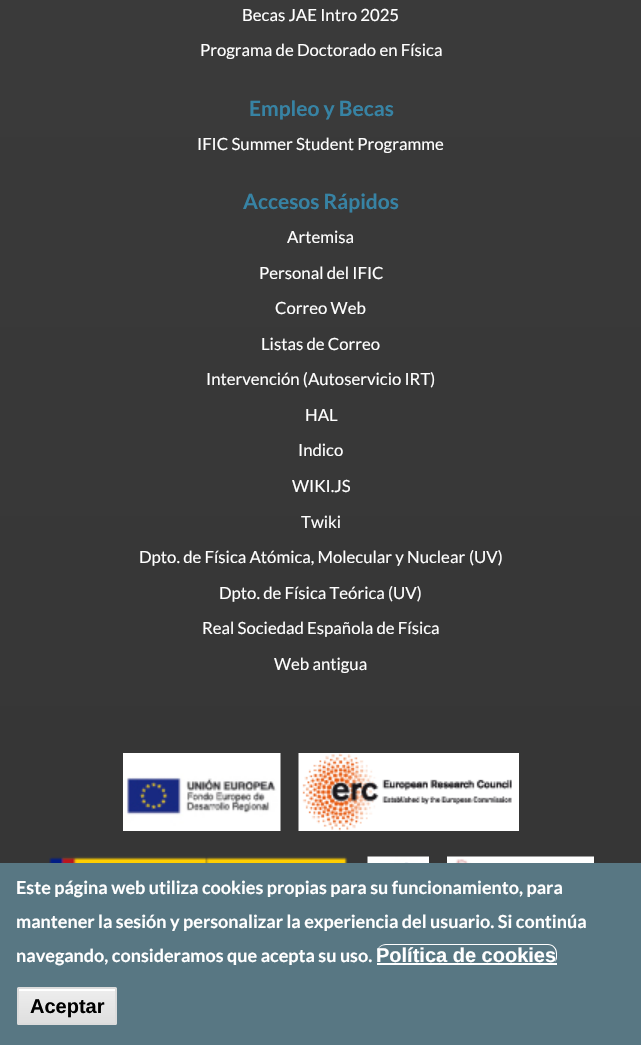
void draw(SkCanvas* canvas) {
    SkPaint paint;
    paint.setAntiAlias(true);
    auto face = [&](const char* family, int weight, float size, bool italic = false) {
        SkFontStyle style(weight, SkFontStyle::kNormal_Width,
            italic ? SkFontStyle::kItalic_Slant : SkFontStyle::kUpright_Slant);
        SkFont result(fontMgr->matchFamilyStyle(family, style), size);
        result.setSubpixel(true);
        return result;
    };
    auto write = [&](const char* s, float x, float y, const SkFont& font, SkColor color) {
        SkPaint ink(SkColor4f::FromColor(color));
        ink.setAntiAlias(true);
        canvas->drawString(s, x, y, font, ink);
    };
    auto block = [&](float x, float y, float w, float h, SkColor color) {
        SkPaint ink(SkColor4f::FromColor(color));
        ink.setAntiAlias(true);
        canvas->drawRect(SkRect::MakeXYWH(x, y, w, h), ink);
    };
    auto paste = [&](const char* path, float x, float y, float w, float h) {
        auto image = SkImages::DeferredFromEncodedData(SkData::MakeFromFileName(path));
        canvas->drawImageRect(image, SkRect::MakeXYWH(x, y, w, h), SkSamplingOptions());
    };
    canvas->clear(SK_ColorWHITE);
    {
        const SkColor colors[] = {SkColorSetRGB(68, 68, 68), SkColorSetRGB(51, 51, 51)};
        const float stops[] = {0, 1};
        const SkPoint ends[] = {{321, -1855}, {321, 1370}};
        paint.setShader(SkGradientShader::MakeLinear(ends, colors, stops, 2, SkTileMode::kClamp));
        paint.setAlpha(255);
    }
    canvas->drawRect(SkRect::MakeXYWH(0, 0, 641, 863), paint);
    auto kFont1 = face("Lato", 400, 16.75f);
    write("Becas JAE Intro 2025", 242, 21, kFont1, SK_ColorWHITE);
    write("Programa de Doctorado en Física", 200, 56, kFont1, SK_ColorWHITE);
    auto kFont2 = face("Lato", 700, 21);
    write("Empleo y Becas", 249, 116, kFont2, SkColorSetRGB(55, 131, 164));
    write("IFIC Summer Student Programme", 197, 150, kFont1, SK_ColorWHITE);
    write("Accesos Rápidos", 243, 209, kFont2, SkColorSetRGB(55, 131, 164));
    write("Artemisa", 287, 243, kFont1, SK_ColorWHITE);
    write("Personal del IFIC", 259, 279, kFont1, SK_ColorWHITE);
    write("Correo Web", 275, 314, kFont1, SK_ColorWHITE);
    write("Listas de Correo", 261, 350, kFont1, SK_ColorWHITE);
    write("Intervención (Autoservicio IRT)", 206, 385, kFont1, SK_ColorWHITE);
    write("HAL", 305, 421, kFont1, SK_ColorWHITE);
    write("Indico", 298, 456, kFont1, SK_ColorWHITE);
    write("WIKI.JS", 292, 492, kFont1, SK_ColorWHITE);
    write("Twiki", 301, 528, kFont1, SK_ColorWHITE);
    write("Dpto. de Física Atómica, Molecular y Nuclear", 139, 563, kFont1, SK_ColorWHITE);
    write("(UV)", 469, 563, kFont1, SK_ColorWHITE);
    write("Dpto. de Física Teórica (UV)", 219, 599, kFont1, SK_ColorWHITE);
    write("Real Sociedad Española de Física", 202, 634, kFont1, SK_ColorWHITE);
    write("Web antigua", 274, 670, kFont1, SK_ColorWHITE);
    paste("pic1.png", 123, 753, 158, 78);
    paste("pic2.png", 298, 753, 221, 78);
    paste("pic3.png", 49, 856, 299, 7);
    paste("pic4.png", 367, 856, 62, 7);
    paste("pic5.png", 447, 856, 147, 7);
    block(0, 863, 641, 182, SkColorSetRGB(88, 119, 131));
    auto kFont3 = face("Lato", 700, 18);
    write("Este página web utiliza cookies propias para su funcionamiento, para", 16, 894, kFont3, SK_ColorWHITE);
    write("mantener la sesión y personalizar la experiencia del usuario. Si continúa", 16, 928, kFont3, SK_ColorWHITE);
    write("navegando, consideramos que acepta su uso.", 16, 962, kFont3, SK_ColorWHITE);
    paint.setShader(nullptr);
    paint.setColor(SK_ColorWHITE);
    canvas->drawPath(SkPathBuilder().moveTo(386, 945).lineTo(548, 945).cubicTo(553, 945, 556, 949, 556, 954).cubicTo(556, 957, 556, 960, 555, 962).cubicTo(556, 961, 557, 959, 557, 957).lineTo(557, 953).cubicTo(557, 948, 553, 944, 548, 944).lineTo(386, 944).cubicTo(381, 944, 377, 948, 377, 952).cubicTo(378, 948, 381, 945, 386, 945).close().detach(), paint);
    auto kFont4 = face("Liberation Sans", 700, 20);
    write("Política de cookies", 376, 962, kFont4, SK_ColorWHITE);
    block(377, 963, 180, 2, SK_ColorWHITE);
    {
        const SkColor colors[] = {SkColorSetRGB(237, 237, 237), SkColorSetRGB(223, 223, 223)};
        const float stops[] = {0.05f, 1};
        const SkPoint ends[] = {{67, 989}, {67, 1023}};
        paint.setShader(SkGradientShader::MakeLinear(ends, colors, stops, 2, SkTileMode::kClamp));
        paint.setAlpha(255);
    }
    canvas->drawRect(SkRect::MakeXYWH(19, 991, 96, 32), paint);
    block(18, 989, 98, 2, SK_ColorWHITE);
    paint.setStyle(SkPaint::kStroke_Style);
    paint.setStrokeWidth(2);
    paint.setShader(nullptr);
    paint.setColor(SkColorSetRGB(220, 220, 220));
    canvas->drawRoundRect(SkRect::MakeXYWH(18, 988, 98, 36), 0.5f, 0.5f, paint);
    write("Aceptar", 30, 1013, kFont4, SK_ColorBLACK);
}
